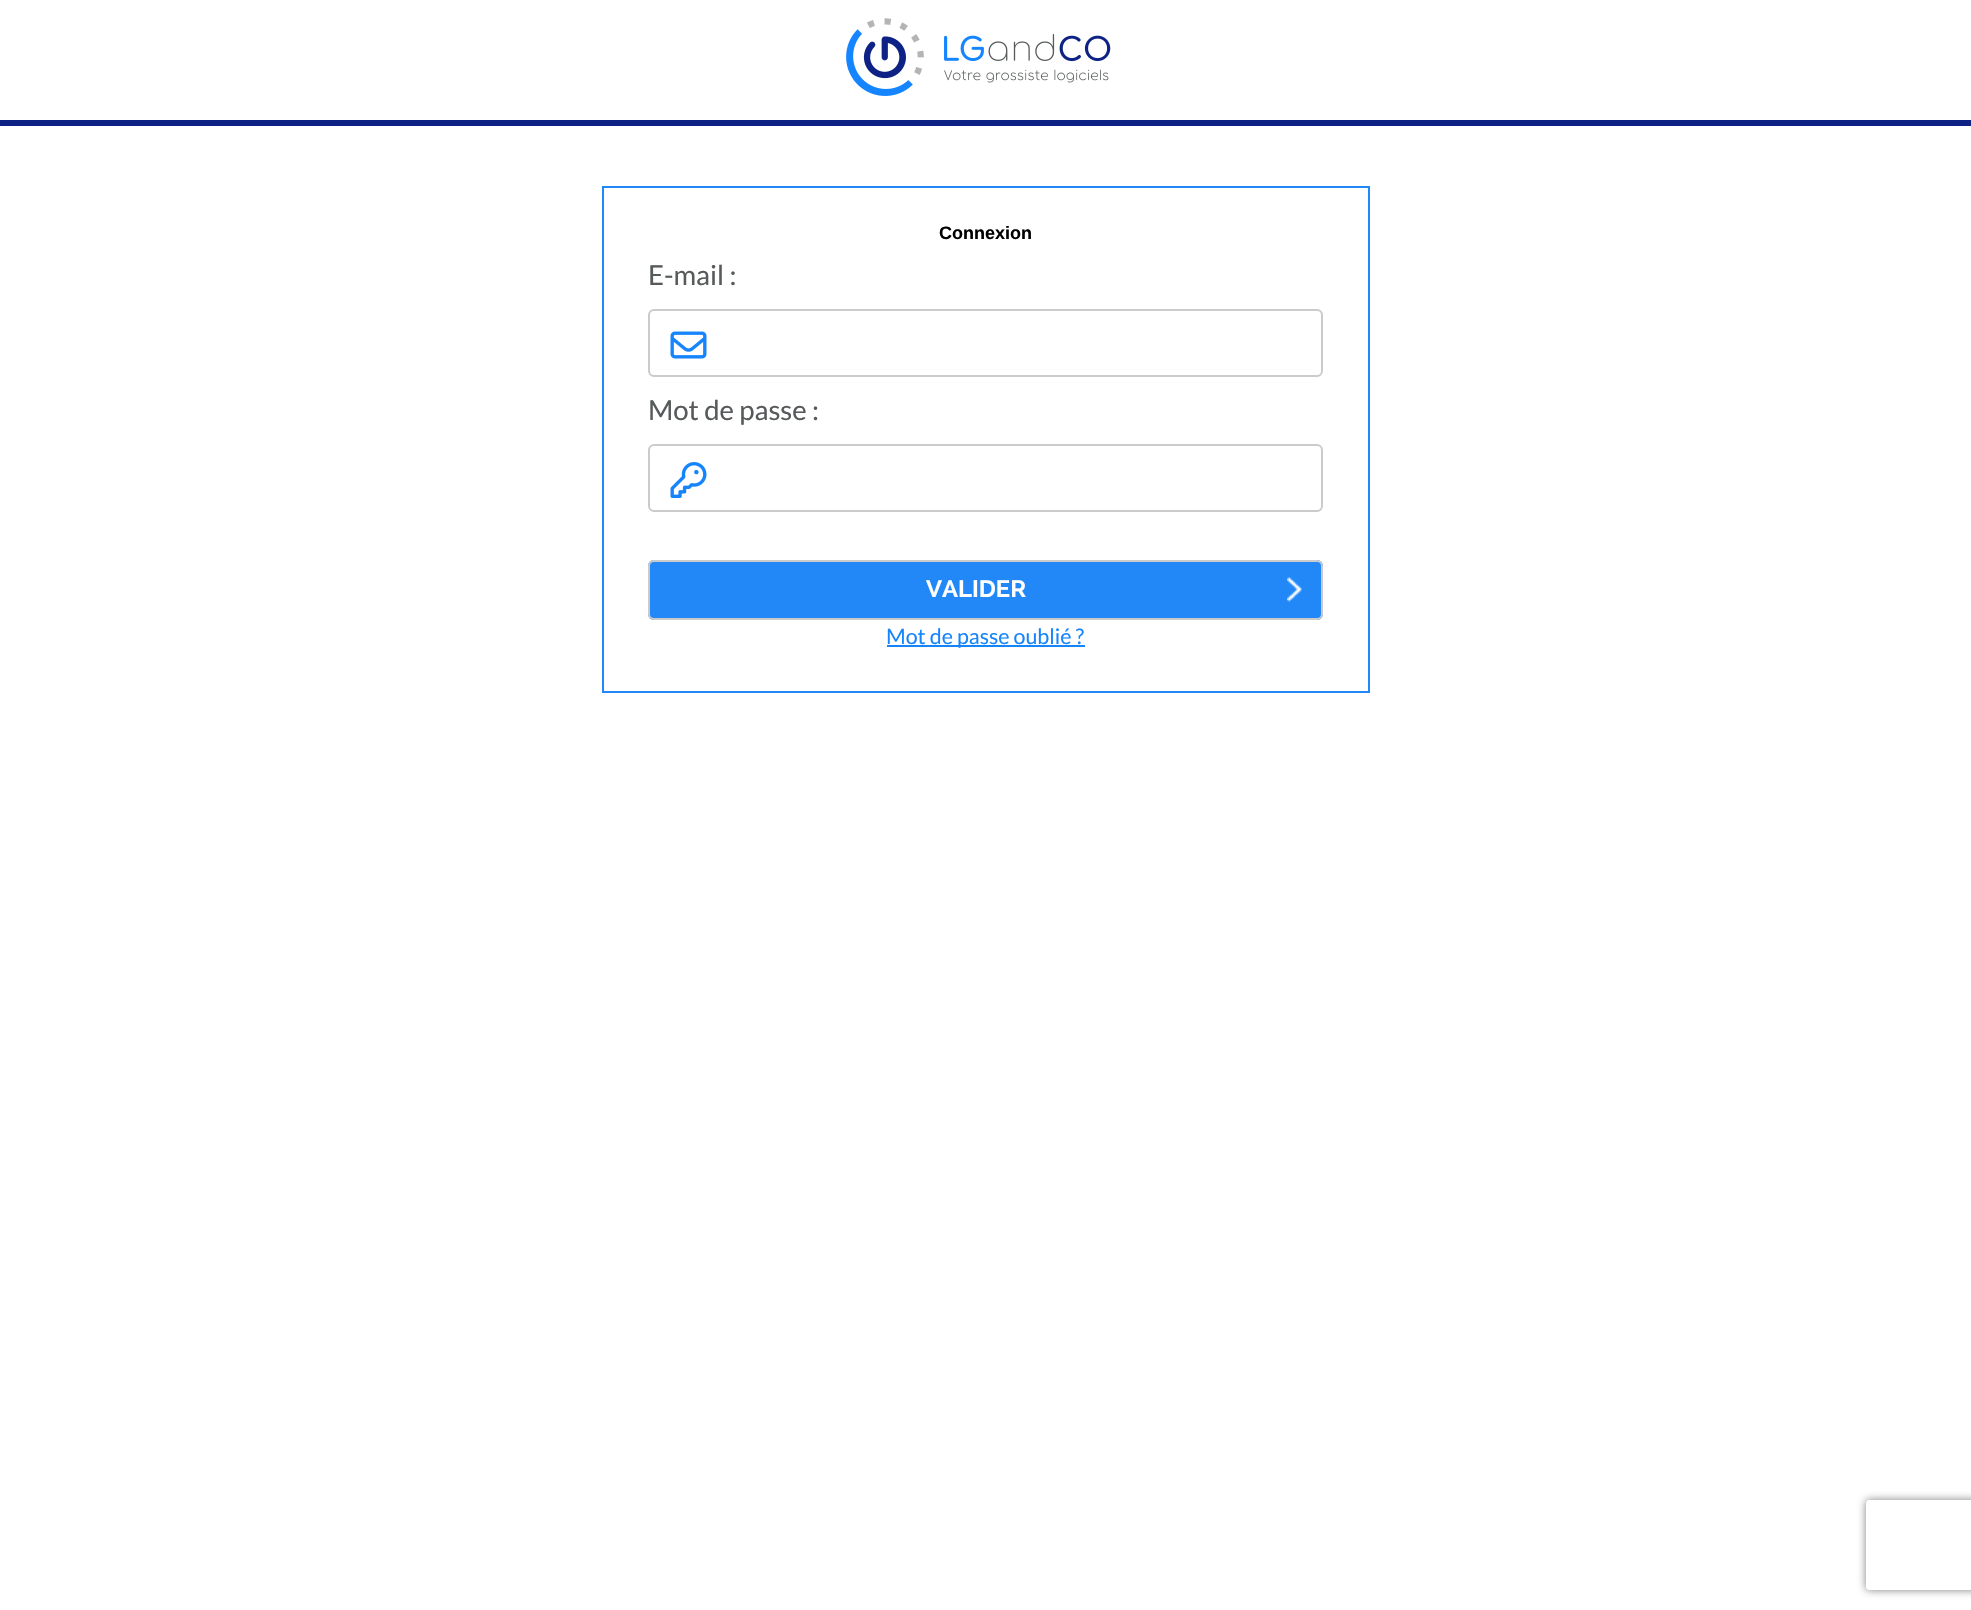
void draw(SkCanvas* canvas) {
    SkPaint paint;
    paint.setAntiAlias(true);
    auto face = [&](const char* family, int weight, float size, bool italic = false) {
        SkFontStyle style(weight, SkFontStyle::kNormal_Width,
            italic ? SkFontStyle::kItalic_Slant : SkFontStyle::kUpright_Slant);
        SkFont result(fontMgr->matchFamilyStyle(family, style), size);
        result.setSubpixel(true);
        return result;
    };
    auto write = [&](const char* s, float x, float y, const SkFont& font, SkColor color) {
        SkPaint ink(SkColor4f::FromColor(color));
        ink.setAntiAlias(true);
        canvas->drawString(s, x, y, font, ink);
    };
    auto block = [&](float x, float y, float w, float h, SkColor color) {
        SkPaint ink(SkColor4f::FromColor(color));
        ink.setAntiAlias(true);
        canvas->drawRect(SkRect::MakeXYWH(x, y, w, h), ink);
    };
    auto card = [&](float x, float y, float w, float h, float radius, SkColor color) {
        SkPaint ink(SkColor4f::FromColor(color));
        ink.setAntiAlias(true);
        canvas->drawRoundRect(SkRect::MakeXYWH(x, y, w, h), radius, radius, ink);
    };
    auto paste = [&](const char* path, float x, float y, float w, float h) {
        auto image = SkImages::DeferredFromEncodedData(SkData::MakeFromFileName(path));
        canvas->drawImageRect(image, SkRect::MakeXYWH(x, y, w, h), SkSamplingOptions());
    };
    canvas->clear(SK_ColorWHITE);
    block(0, 120, 1971, 6, SkColorSetRGB(13, 34, 132));
    paste("pic1.png", 846, 18, 265, 78);
    paint.setStyle(SkPaint::kStroke_Style);
    paint.setStrokeWidth(2);
    paint.setColor(SkColorSetRGB(34, 136, 248));
    canvas->drawRect(SkRect::MakeXYWH(603, 187, 766, 505), paint);
    auto kFont1 = face("Liberation Sans", 700, 18);
    write("Connexion", 939, 239, kFont1, SK_ColorBLACK);
    auto kFont2 = face("Lato", 400, 27);
    write("E-mail :", 648, 285, kFont2, SkColorSetRGB(87, 90, 91));
    paint.setColor(SkColorSetRGB(203, 203, 203));
    canvas->drawRoundRect(SkRect::MakeXYWH(649, 310, 673, 66), 5, 5, paint);
    paste("pic2.png", 670, 331, 37, 28);
    write("Mot de passe :", 648, 420, kFont2, SkColorSetRGB(87, 90, 91));
    canvas->drawRoundRect(SkRect::MakeXYWH(649, 445, 673, 66), 5, 5, paint);
    paste("pic3.png", 670, 462, 37, 36);
    card(648, 560, 675, 60, 6, SkColorSetRGB(34, 136, 248));
    paste("pic4.png", 1287, 577, 15, 25);
    canvas->drawRoundRect(SkRect::MakeXYWH(649, 561, 673, 58), 5, 5, paint);
    auto kFont3 = face("Raleway", 700, 24);
    write("VALIDER", 926, 597, kFont3, SK_ColorWHITE);
    block(887, 645, 198, 2, SkColorSetRGB(22, 133, 252));
    auto kFont4 = face("Lato", 400, 21);
    write("Mot de passe oublié ?", 886, 644, kFont4, SkColorSetRGB(22, 133, 252));
    canvas->save();
    canvas->clipPath(SkPathBuilder(SkPathFillType::kEvenOdd).moveTo(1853, 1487).lineTo(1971, 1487).lineTo(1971, 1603).lineTo(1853, 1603).close().moveTo(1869, 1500).lineTo(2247, 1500).cubicTo(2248.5f, 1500, 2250, 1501.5f, 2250, 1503).lineTo(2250, 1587).cubicTo(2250, 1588.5f, 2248.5f, 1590, 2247, 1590).lineTo(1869, 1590).cubicTo(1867.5f, 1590, 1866, 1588.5f, 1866, 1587).lineTo(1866, 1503).cubicTo(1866, 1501.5f, 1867.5f, 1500, 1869, 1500).close().detach(), true);
    paint.setStyle(SkPaint::kFill_Style);
    paint.setColor(SkColorSetRGB(128, 128, 128));
    paint.setMaskFilter(SkMaskFilter::MakeBlur(kNormal_SkBlurStyle, 4));
    canvas->drawRoundRect(SkRect::MakeXYWH(1866, 1500, 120, 90), 3, 3, paint);
    paint.setMaskFilter(nullptr);
    canvas->restore();
}
